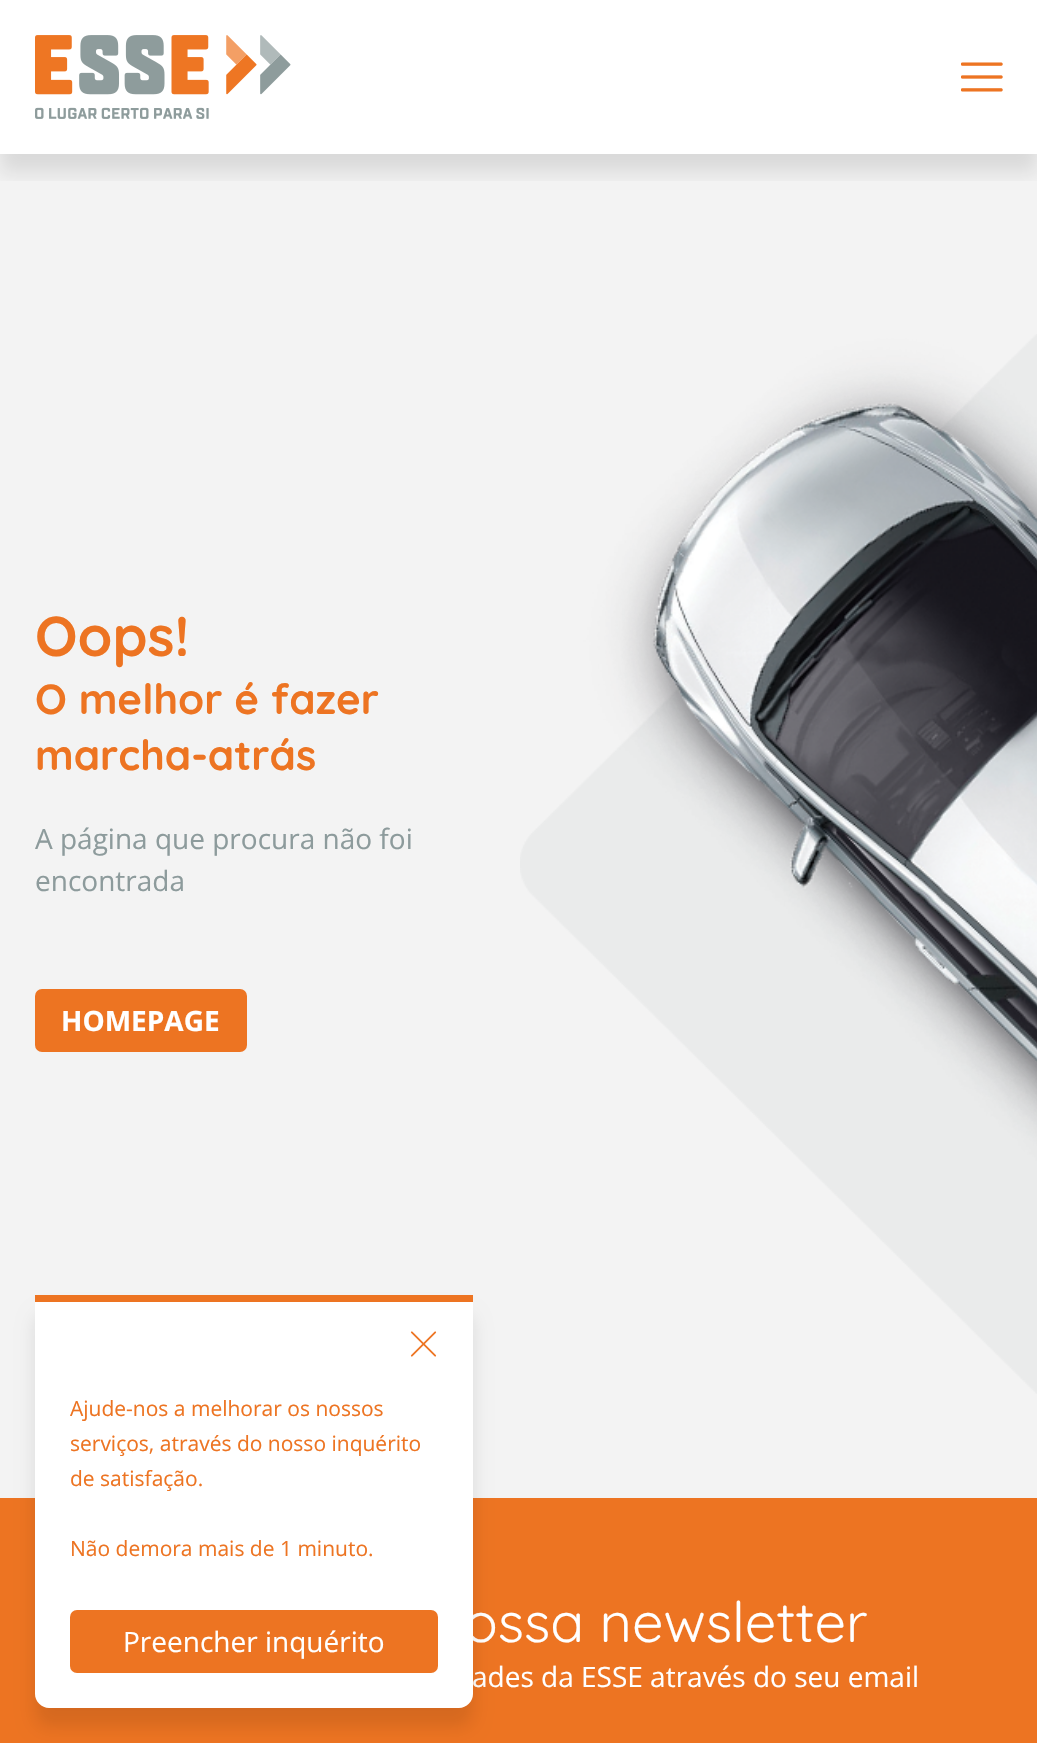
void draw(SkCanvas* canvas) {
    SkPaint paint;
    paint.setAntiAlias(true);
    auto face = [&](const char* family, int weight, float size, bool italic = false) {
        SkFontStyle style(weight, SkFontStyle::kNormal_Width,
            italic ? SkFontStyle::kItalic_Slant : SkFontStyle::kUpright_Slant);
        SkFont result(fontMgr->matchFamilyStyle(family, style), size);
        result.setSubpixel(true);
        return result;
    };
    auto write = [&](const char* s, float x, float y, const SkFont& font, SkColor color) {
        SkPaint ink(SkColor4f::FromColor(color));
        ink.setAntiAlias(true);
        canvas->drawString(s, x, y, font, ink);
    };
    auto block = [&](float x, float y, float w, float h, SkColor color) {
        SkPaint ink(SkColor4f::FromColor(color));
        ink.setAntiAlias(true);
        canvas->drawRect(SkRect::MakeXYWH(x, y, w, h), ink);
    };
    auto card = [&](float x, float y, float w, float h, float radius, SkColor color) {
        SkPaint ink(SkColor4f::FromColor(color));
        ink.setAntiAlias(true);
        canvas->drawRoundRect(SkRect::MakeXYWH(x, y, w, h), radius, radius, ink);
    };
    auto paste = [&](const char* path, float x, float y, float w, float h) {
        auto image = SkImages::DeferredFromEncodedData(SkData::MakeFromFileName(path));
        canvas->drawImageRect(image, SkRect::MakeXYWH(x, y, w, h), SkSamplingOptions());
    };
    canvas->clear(SK_ColorWHITE);
    block(0, 154, 1037, 1344, SkColorSetRGB(243, 243, 243));
    canvas->save();
    canvas->clipRect(SkRect::MakeXYWH(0, 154, 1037, 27));
    paint.setColor(SkColorSetARGB(26, 0, 0, 0));
    paint.setMaskFilter(SkMaskFilter::MakeBlur(kNormal_SkBlurStyle, 9));
    canvas->drawRect(SkRect::MakeXYWH(0, 19, 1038, 154), paint);
    paint.setMaskFilter(nullptr);
    canvas->restore();
    paste("pic1.png", 35, 35, 256, 84);
    paste("pic2.png", 961, 62, 42, 30);
    auto kFont1 = face("Quicksand", 700, 56);
    write("Oops!", 35, 656, kFont1, SkColorSetRGB(237, 116, 34));
    auto kFont2 = face("Quicksand", 700, 42);
    write("O melhor é fazer", 35, 714, kFont2, SkColorSetRGB(237, 116, 34));
    write("marcha-atrás", 35, 770, kFont2, SkColorSetRGB(237, 116, 34));
    auto kFont3 = face("Open Sans", 400, 28);
    write("A página que procura não foi", 35, 849, kFont3, SkColorSetRGB(141, 155, 156));
    write("encontrada", 35, 891, kFont3, SkColorSetRGB(141, 155, 156));
    card(35, 989, 212, 63, 7, SkColorSetRGB(237, 116, 34));
    auto kFont4 = face("Open Sans", 700, 28);
    write("HOMEPAGE", 61, 1031, kFont4, SK_ColorWHITE);
    paste("pic3.png", 520, 334, 517, 1060);
    block(0, 1498, 1037, 245, SkColorSetRGB(237, 116, 34));
    auto kFont5 = face("Quicksand", 400, 56);
    write("ossa newsletter", 464, 1642, kFont5, SK_ColorWHITE);
    write("ades da ESSE através do seu email", 472, 1687, kFont3, SK_ColorWHITE);
    paint.setMaskFilter(SkMaskFilter::MakeBlur(kNormal_SkBlurStyle, 9));
    canvas->drawRoundRect(SkRect::MakeXYWH(35, 1314, 438, 413), 14, 14, paint);
    paint.setMaskFilter(nullptr);
    paint.setColor(SK_ColorWHITE);
    canvas->drawPath(SkPathBuilder().moveTo(35, 1295).lineTo(473, 1295).lineTo(473, 1694).cubicTo(473, 1701.5f, 466.5f, 1708, 459, 1708).lineTo(49, 1708).cubicTo(41.5f, 1708, 35, 1701.5f, 35, 1694).close().detach(), paint);
    block(35, 1295, 438, 7, SkColorSetRGB(237, 116, 34));
    paste("pic4.png", 410, 1331, 27, 26);
    auto kFont6 = face("Open Sans", 400, 21);
    write("Ajude-nos a melhorar os nossos", 70, 1416, kFont6, SkColorSetRGB(237, 116, 34));
    write("serviços, através do nosso inquérito", 70, 1451, kFont6, SkColorSetRGB(237, 116, 34));
    write("de satisfação.", 70, 1486, kFont6, SkColorSetRGB(237, 116, 34));
    write("Não demora mais de 1 minuto.", 70, 1556, kFont6, SkColorSetRGB(237, 116, 34));
    card(70, 1610, 368, 63, 7, SkColorSetRGB(237, 116, 34));
    write("Preencher inquérito", 123, 1652, kFont3, SK_ColorWHITE);
}
